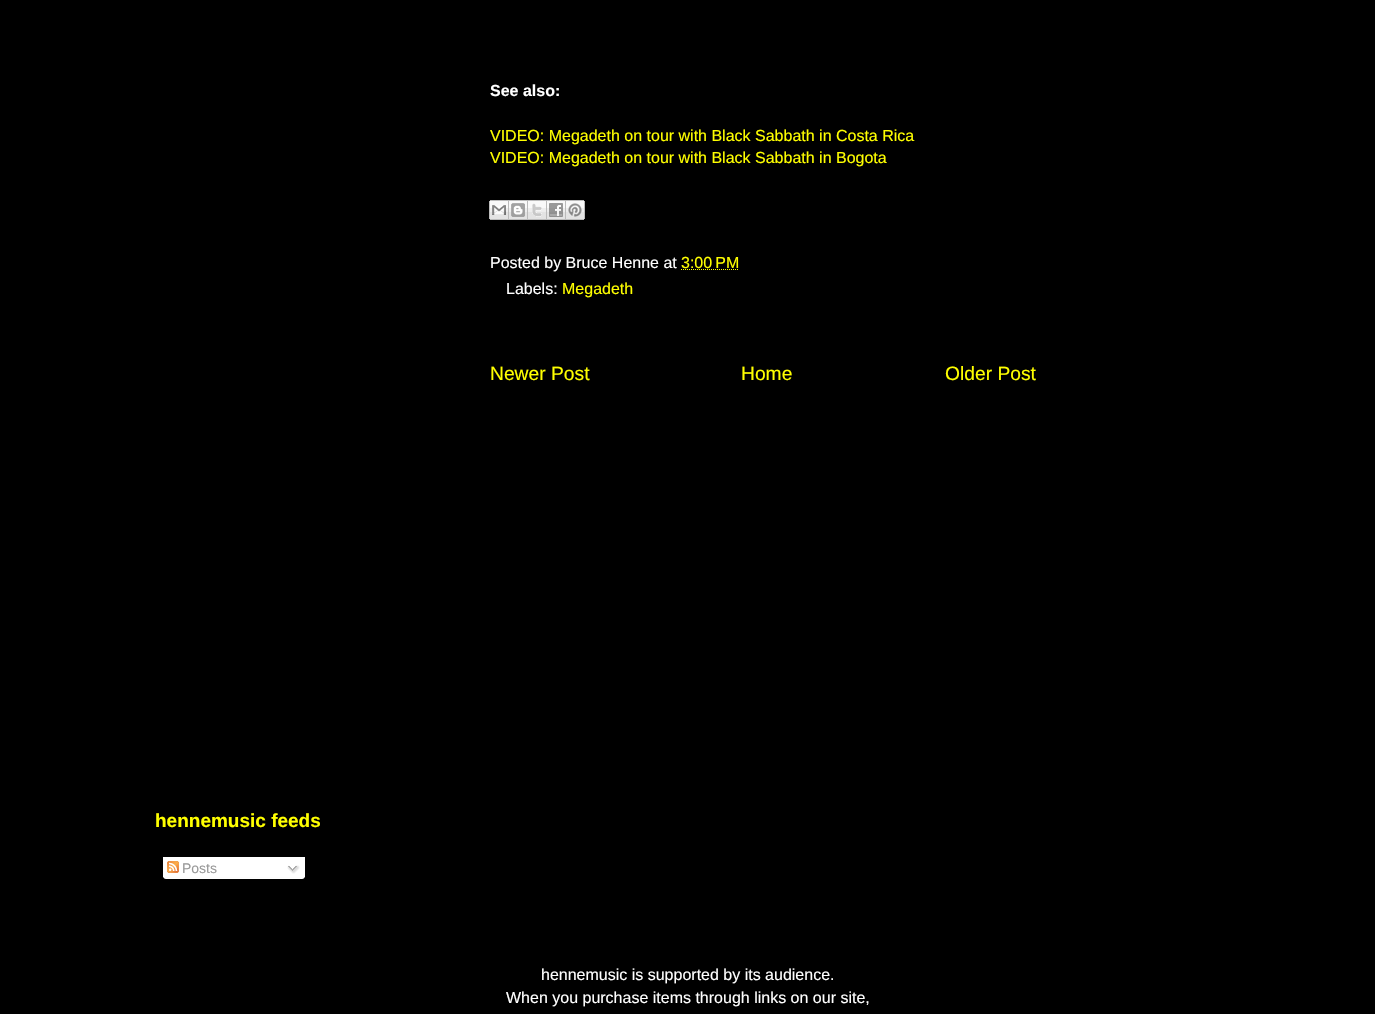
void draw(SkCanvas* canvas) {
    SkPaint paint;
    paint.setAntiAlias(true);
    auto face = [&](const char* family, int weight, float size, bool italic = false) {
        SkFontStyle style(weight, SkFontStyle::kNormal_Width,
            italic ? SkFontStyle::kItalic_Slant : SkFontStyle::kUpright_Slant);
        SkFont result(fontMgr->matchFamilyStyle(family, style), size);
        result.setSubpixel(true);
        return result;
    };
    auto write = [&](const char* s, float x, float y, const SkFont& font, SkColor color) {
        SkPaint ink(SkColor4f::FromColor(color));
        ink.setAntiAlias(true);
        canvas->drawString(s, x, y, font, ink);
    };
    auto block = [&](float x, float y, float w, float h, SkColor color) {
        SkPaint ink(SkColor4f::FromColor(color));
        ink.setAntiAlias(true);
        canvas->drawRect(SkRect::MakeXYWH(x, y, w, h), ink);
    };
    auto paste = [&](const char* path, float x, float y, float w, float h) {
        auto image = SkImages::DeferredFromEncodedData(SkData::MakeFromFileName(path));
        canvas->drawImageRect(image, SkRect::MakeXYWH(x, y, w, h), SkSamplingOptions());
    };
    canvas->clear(SK_ColorBLACK);
    auto kFont1 = face("Liberation Sans", 700, 16);
    write("See also:", 490, 96, kFont1, SK_ColorWHITE);
    auto kFont2 = face("Liberation Sans", 400, 16);
    write("VIDEO: Megadeth on tour with Black Sabbath in Costa Rica", 490, 141, kFont2, SkColorSetRGB(255, 255, 0));
    write("VIDEO: Megadeth on tour with Black Sabbath in Bogota", 490, 163, kFont2, SkColorSetRGB(255, 255, 0));
    paste("pic1.png", 489, 200, 20, 20);
    paste("pic2.png", 509, 200, 19, 20);
    paste("pic3.png", 528, 200, 19, 20);
    paste("pic4.png", 547, 200, 19, 20);
    paste("pic5.png", 566, 200, 19, 20);
    write("Posted by Bruce Henne at", 490, 268, kFont2, SK_ColorWHITE);
    write("3:00 PM", 681, 268, kFont2, SkColorSetRGB(255, 255, 0));
    paint.setStyle(SkPaint::kStroke_Style);
    paint.setStrokeWidth(1);
    paint.setColor(SkColorSetRGB(255, 255, 0));
    paint.setPathEffect(SkDashPathEffect::Make({{1, 1}}, 0));
    canvas->drawPath(SkPathBuilder().moveTo(681, 269.5f).lineTo(739, 269.5f).detach(), paint);
    paint.setPathEffect(nullptr);
    write("Labels:", 506, 294, kFont2, SK_ColorWHITE);
    write("Megadeth", 562, 294, kFont2, SkColorSetRGB(255, 255, 0));
    auto kFont3 = face("Liberation Sans", 400, 19.25f);
    write("Newer Post", 490, 380, kFont3, SkColorSetRGB(255, 255, 0));
    write("Home", 741, 380, kFont3, SkColorSetRGB(255, 255, 0));
    write("Older Post", 945, 380, kFont3, SkColorSetRGB(255, 255, 0));
    auto kFont4 = face("Liberation Sans", 700, 19);
    write("hennemusic feeds", 155, 827, kFont4, SkColorSetRGB(255, 255, 0));
    block(163, 857, 142, 20, SK_ColorWHITE);
    paste("pic6.png", 167, 861, 12, 12);
    auto kFont5 = face("Liberation Sans", 400, 14);
    write("Posts", 182, 873, kFont5, SkColorSetRGB(153, 153, 153));
    paste("pic7.png", 287, 865, 13, 9);
    paste("pic8.png", 163, 877, 142, 2);
    write("hennemusic is supported by its audience.", 541, 980, kFont2, SK_ColorWHITE);
    write("When you purchase items through links on our site,", 506, 1003, kFont2, SK_ColorWHITE);
}
